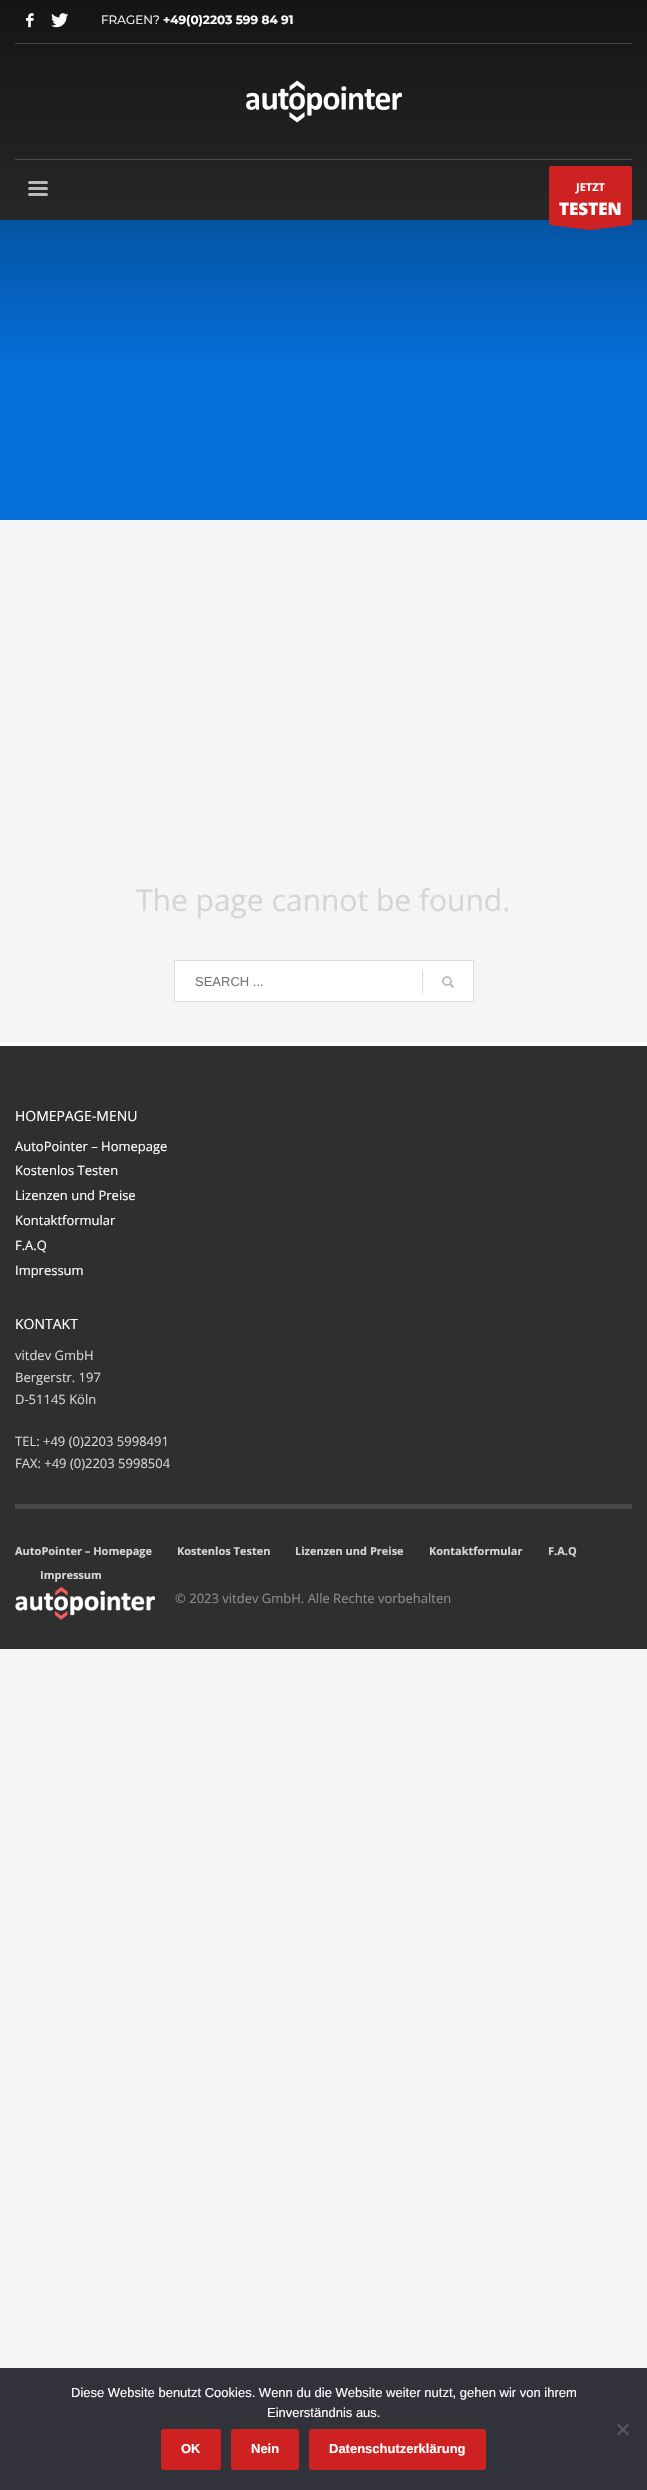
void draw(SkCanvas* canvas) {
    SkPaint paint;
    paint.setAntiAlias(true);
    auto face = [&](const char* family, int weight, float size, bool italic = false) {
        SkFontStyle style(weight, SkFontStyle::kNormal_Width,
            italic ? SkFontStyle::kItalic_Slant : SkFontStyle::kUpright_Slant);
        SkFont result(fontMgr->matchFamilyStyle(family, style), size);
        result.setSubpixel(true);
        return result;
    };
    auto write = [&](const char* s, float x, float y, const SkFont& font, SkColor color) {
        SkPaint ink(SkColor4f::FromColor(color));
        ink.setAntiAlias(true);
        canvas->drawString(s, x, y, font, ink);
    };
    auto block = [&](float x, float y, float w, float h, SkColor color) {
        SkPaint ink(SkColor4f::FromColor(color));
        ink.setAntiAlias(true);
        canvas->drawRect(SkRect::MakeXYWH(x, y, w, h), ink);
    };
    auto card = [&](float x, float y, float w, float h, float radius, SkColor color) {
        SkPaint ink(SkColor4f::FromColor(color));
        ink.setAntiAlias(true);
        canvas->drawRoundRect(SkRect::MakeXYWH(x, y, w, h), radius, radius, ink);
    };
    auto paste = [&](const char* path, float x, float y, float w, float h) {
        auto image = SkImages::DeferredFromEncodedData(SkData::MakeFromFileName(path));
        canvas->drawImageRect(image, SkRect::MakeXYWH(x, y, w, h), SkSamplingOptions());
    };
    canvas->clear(SkColorSetRGB(245, 245, 245));
    block(0, 0, 647, 220, SkColorSetRGB(51, 51, 51));
    block(0, 220, 647, 300, SkColorSetRGB(6, 111, 217));
    {
        const SkColor colors[] = {SkColorSetARGB(153, 0, 0, 0), SkColorSetARGB(0, 0, 0, 0)};
        const float stops[] = {0, 1};
        const SkPoint ends[] = {{324, 0}, {324, 374}};
        paint.setShader(SkGradientShader::MakeLinear(ends, colors, stops, 2, SkTileMode::kClamp));
        paint.setAlpha(255);
    }
    canvas->drawRect(SkRect::MakeXYWH(0, 0, 647, 361), paint);
    paste("pic1.png", 26, 13, 8, 15);
    paste("pic2.png", 51, 13, 17, 15);
    auto kFont1 = face("Montserrat", 400, 12);
    write("FRAGEN?", 101, 24, kFont1, SK_ColorWHITE);
    auto kFont2 = face("Montserrat", 700, 12);
    write("+49(0)2203 599 84 91", 163, 24, kFont2, SK_ColorWHITE);
    block(15, 43, 617, 1, SkColorSetRGB(70, 70, 70));
    paste("pic3.png", 246, 80, 156, 43);
    block(15, 159, 617, 1, SkColorSetRGB(78, 78, 78));
    card(28, 181, 20, 3, 1.5f, SkColorSetRGB(185, 185, 185));
    card(28, 187, 20, 3, 1.5f, SkColorSetRGB(185, 185, 185));
    card(28, 193, 20, 3, 1.5f, SkColorSetRGB(185, 185, 185));
    card(549, 166, 83, 59, 2, SkColorSetRGB(205, 33, 34));
    auto kFont3 = face("Open Sans", 700, 11);
    write("JETZT", 576, 191, kFont3, SK_ColorWHITE);
    auto kFont4 = face("Open Sans", 800, 17);
    write("TESTEN", 559, 215, kFont4, SK_ColorWHITE);
    paint.setShader(nullptr);
    paint.setColor(SkColorSetRGB(205, 33, 34));
    canvas->drawPath(SkPathBuilder(SkPathFillType::kEvenOdd).moveTo(632, 225).lineTo(590, 230).lineTo(549, 225).close().detach(), paint);
    auto kFont5 = face("Open Sans", 400, 30);
    write("The page cannot be found.", 136, 911, kFont5, SkColorSetRGB(213, 213, 213));
    paint.setColor(SK_ColorWHITE);
    canvas->drawRect(SkRect::MakeXYWH(174.5f, 960.5f, 299, 41), paint);
    paint.setStyle(SkPaint::kStroke_Style);
    paint.setStrokeWidth(1);
    paint.setColor(SkColorSetRGB(221, 221, 221));
    canvas->drawRect(SkRect::MakeXYWH(174.5f, 960.5f, 299, 41), paint);
    auto kFont6 = face("Liberation Sans", 400, 13);
    write("SEARCH ...", 195, 986, kFont6, SkColorSetRGB(117, 117, 117));
    block(422, 970, 1, 24, SkColorSetRGB(221, 221, 221));
    paste("pic4.png", 442, 976, 12, 12);
    block(0, 1046, 647, 603, SkColorSetRGB(47, 47, 47));
    block(0, 1042, 647, 4, SK_ColorWHITE);
    auto kFont7 = face("Open Sans", 400, 14);
    write("HOMEPAGE-MENU", 15, 1121, kFont7, SK_ColorWHITE);
    auto kFont8 = face("Open Sans", 400, 13);
    write("AutoPointer – Homepage", 15, 1151, kFont8, SK_ColorWHITE);
    write("Kostenlos Testen", 15, 1175, kFont8, SK_ColorWHITE);
    write("Lizenzen und Preise", 15, 1200, kFont8, SK_ColorWHITE);
    write("Kontaktformular", 15, 1225, kFont8, SK_ColorWHITE);
    write("F.A.Q", 15, 1250, kFont8, SK_ColorWHITE);
    write("Impressum", 15, 1275, kFont8, SK_ColorWHITE);
    write("KONTAKT", 15, 1329, kFont7, SK_ColorWHITE);
    write("vitdev GmbH", 15, 1360, kFont8, SkColorSetRGB(213, 213, 213));
    write("Bergerstr. 197", 15, 1382, kFont8, SkColorSetRGB(213, 213, 213));
    write("D-51145 Köln", 15, 1404, kFont8, SkColorSetRGB(213, 213, 213));
    write("TEL: +49 (0)2203 5998491", 15, 1446, kFont8, SkColorSetRGB(213, 213, 213));
    write("FAX: +49 (0)2203 5998504", 15, 1468, kFont8, SkColorSetRGB(213, 213, 213));
    block(15, 1504, 617, 5, SkColorSetRGB(72, 72, 72));
    write("AutoPointer – Homepage", 15, 1555, kFont3, SkColorSetRGB(213, 213, 213));
    write("Kostenlos Testen", 177, 1555, kFont3, SkColorSetRGB(213, 213, 213));
    write("Lizenzen und Preise", 295, 1555, kFont3, SkColorSetRGB(213, 213, 213));
    write("Kontaktformular", 429, 1555, kFont3, SkColorSetRGB(213, 213, 213));
    write("F.A.Q", 548, 1555, kFont3, SkColorSetRGB(213, 213, 213));
    write("Impressum", 40, 1579, kFont3, SkColorSetRGB(213, 213, 213));
    paste("pic5.png", 15, 1587, 140, 33);
    write("© 2023 vitdev GmbH. Alle Rechte vorbehalten", 175, 1603, kFont8, SkColorSetRGB(139, 140, 141));
    block(0, 2368, 647, 122, SkColorSetRGB(50, 50, 58));
    write("Diese Website benutzt Cookies. Wenn du die Website weiter nutzt, gehen wir von ihrem", 71, 2397, kFont6, SK_ColorWHITE);
    write("Einverständnis aus.", 267, 2417, kFont6, SK_ColorWHITE);
    paint.setStyle(SkPaint::kFill_Style);
    paint.setColor(SkColorSetRGB(89, 89, 93));
    canvas->drawPath(SkPathBuilder().moveTo(627.5f, 2423.5f).lineTo(629, 2425).lineTo(618.5f, 2435.5f).lineTo(617, 2434).close().detach(), paint);
    canvas->drawPath(SkPathBuilder().moveTo(617, 2425).lineTo(618.5f, 2423.5f).lineTo(629, 2434).lineTo(627.5f, 2435.5f).close().detach(), paint);
    card(161, 2429, 60, 41, 3, SkColorSetRGB(205, 33, 34));
    auto kFont9 = face("Liberation Sans", 700, 13);
    write("OK", 181, 2453, kFont9, SK_ColorWHITE);
    card(231, 2429, 68, 41, 3, SkColorSetRGB(205, 33, 34));
    write("Nein", 251, 2453, kFont9, SK_ColorWHITE);
    card(309, 2429, 177, 41, 3, SkColorSetRGB(205, 33, 34));
    write("Datenschutzerklärung", 329, 2453, kFont9, SK_ColorWHITE);
}
